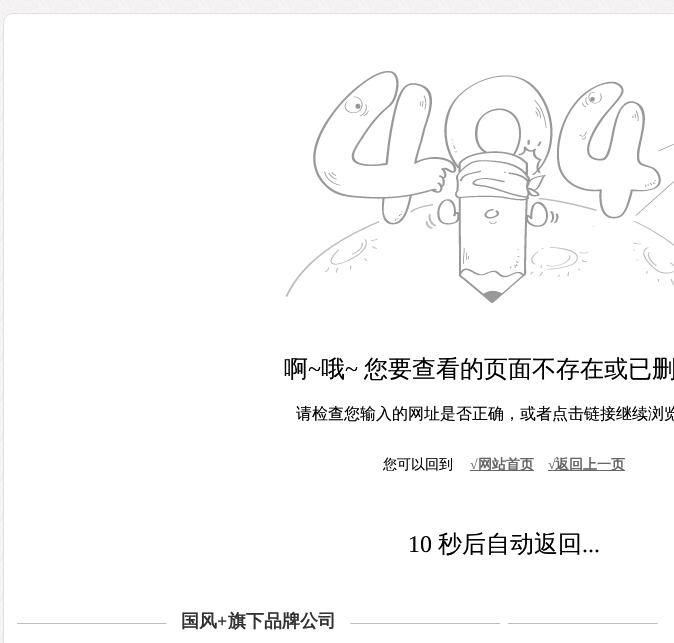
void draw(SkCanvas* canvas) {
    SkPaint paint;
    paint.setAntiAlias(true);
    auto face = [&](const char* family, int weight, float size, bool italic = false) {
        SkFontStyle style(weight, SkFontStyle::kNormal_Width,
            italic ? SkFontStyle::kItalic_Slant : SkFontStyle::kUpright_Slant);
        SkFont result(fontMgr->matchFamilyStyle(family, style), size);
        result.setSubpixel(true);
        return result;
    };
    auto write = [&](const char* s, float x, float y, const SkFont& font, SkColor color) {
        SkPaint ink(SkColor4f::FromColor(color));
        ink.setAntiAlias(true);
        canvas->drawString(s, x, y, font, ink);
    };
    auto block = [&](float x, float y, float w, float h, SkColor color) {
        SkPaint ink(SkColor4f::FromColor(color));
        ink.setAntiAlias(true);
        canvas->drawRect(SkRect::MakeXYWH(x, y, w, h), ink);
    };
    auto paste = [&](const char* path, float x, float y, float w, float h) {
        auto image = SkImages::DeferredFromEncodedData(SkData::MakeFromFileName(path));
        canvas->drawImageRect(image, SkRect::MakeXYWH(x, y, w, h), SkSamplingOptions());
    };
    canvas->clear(SK_ColorWHITE);
    paste("pic1.png", 0, 0, 674, 643);
    paint.setColor(SK_ColorWHITE);
    canvas->drawRoundRect(SkRect::MakeXYWH(3.5f, 13.5f, 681, 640), 9.5f, 9.5f, paint);
    paint.setStyle(SkPaint::kStroke_Style);
    paint.setStrokeWidth(1);
    paint.setColor(SkColorSetRGB(225, 225, 225));
    canvas->drawRoundRect(SkRect::MakeXYWH(3.5f, 13.5f, 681, 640), 9.5f, 9.5f, paint);
    paste("pic2.png", 285, 71, 389, 232);
    auto kFont1 = face("WenQuanYi Zen Hei", 500, 24);
    write("啊", 284, 377, kFont1, SK_ColorBLACK);
    auto kFont2 = face("Liberation Serif", 400, 24);
    write("~", 308, 377, kFont2, SK_ColorBLACK);
    write("哦", 321, 377, kFont1, SK_ColorBLACK);
    write("~", 345, 377, kFont2, SK_ColorBLACK);
    write("您要查看的页面不存在或已删", 364, 377, kFont1, SK_ColorBLACK);
    auto kFont3 = face("WenQuanYi Zen Hei", 500, 16);
    write("请检查您输入的网址是否正确，或者点击链接继续浏览", 296, 419, kFont3, SK_ColorBLACK);
    auto kFont4 = face("WenQuanYi Zen Hei", 500, 14);
    write("您可以回到", 383, 469, kFont4, SK_ColorBLACK);
    auto kFont5 = face("Liberation Serif", 700, 14);
    write("√", 470, 469, kFont5, SkColorSetRGB(102, 102, 102));
    block(470, 470, 64, 1, SkColorSetRGB(102, 102, 102));
    auto kFont6 = face("WenQuanYi Zen Hei", 700, 14);
    write("网站首页", 478, 469, kFont6, SkColorSetRGB(102, 102, 102));
    write("√", 548, 469, kFont5, SkColorSetRGB(102, 102, 102));
    block(548, 470, 77, 1, SkColorSetRGB(102, 102, 102));
    write("返回上一页", 555, 469, kFont6, SkColorSetRGB(102, 102, 102));
    write("10", 408, 552, kFont2, SK_ColorBLACK);
    write("秒后自动返回", 438, 552, kFont1, SK_ColorBLACK);
    write("...", 582, 552, kFont2, SK_ColorBLACK);
    paste("pic3.png", 17, 623, 483, 1);
    auto kFont7 = face("WenQuanYi Zen Hei", 700, 18);
    write("国风", 181, 627, kFont7, SkColorSetRGB(51, 51, 51));
    auto kFont8 = face("Liberation Serif", 700, 18);
    write("+", 217, 627, kFont8, SkColorSetRGB(51, 51, 51));
    write("旗下品牌公司", 228, 627, kFont7, SkColorSetRGB(51, 51, 51));
    paste("pic4.png", 508, 623, 150, 1);
}
